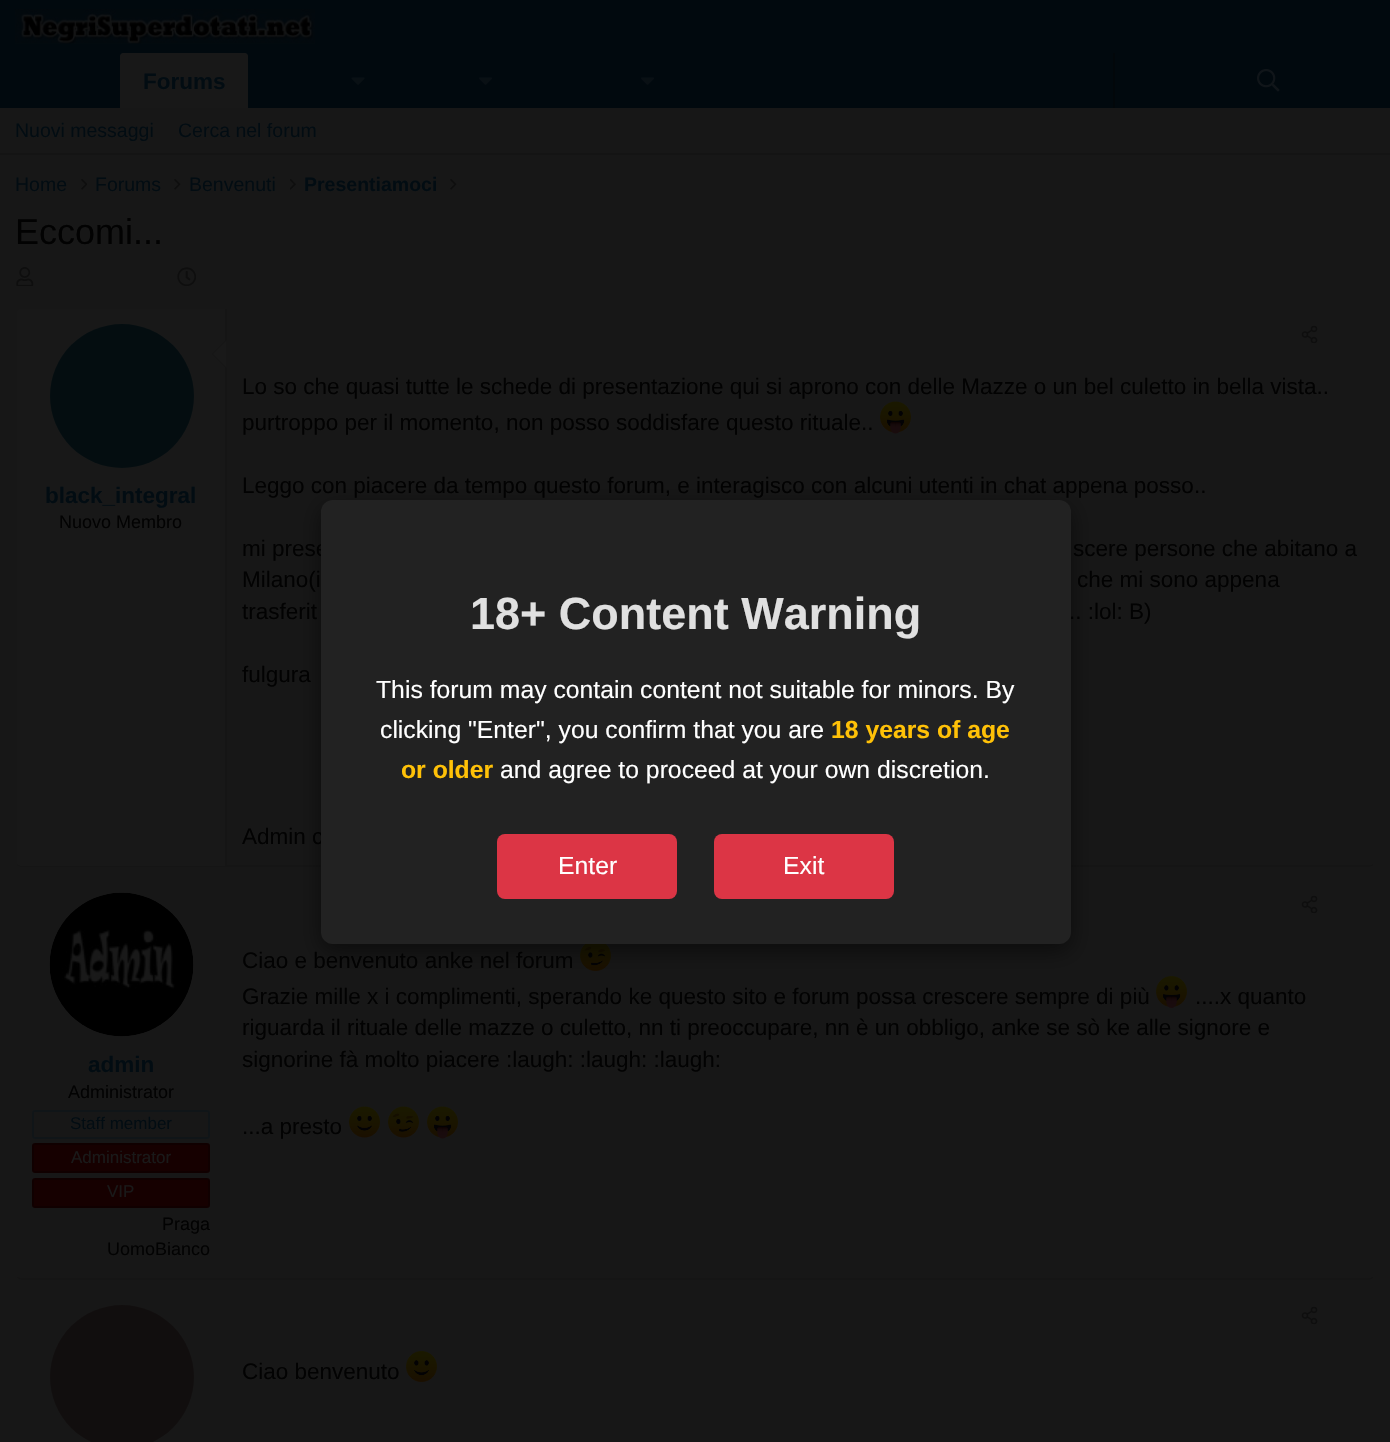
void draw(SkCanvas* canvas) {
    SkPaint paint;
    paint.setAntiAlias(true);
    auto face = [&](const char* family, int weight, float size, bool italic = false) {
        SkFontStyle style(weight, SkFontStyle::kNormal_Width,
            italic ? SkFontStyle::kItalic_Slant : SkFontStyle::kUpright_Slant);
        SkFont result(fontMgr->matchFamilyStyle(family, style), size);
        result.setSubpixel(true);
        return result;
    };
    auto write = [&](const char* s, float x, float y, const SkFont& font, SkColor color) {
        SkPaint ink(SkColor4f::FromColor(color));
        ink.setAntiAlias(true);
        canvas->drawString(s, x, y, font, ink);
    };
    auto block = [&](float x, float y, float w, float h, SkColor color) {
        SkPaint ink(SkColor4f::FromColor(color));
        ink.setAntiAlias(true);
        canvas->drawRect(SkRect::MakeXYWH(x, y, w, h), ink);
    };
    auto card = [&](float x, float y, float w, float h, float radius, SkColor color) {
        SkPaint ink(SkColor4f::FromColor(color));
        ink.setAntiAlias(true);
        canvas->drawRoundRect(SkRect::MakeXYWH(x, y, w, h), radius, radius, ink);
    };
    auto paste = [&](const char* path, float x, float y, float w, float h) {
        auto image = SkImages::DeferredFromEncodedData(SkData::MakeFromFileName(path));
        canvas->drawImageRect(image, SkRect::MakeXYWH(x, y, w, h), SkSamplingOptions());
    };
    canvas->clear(SkColorSetRGB(23, 23, 23));
    block(0, 0, 1390, 108, SkColorSetRGB(1, 9, 14));
    paste("pic1.png", 15, 9, 300, 35);
    paint.setColor(SkColorSetRGB(24, 24, 24));
    canvas->drawPath(SkPathBuilder().moveTo(123, 53).lineTo(245, 53).cubicTo(246.5f, 53, 248, 54.5f, 248, 56).lineTo(248, 108).lineTo(120, 108).lineTo(120, 56).cubicTo(120, 54.5f, 121.5f, 53, 123, 53).close().detach(), paint);
    auto kFont1 = face("Liberation Sans", 700, 22.5f);
    write("Forums", 143, 89, kFont1, SkColorSetRGB(2, 12, 18));
    paste("pic2.png", 351, 77, 14, 8);
    paste("pic3.png", 479, 77, 13, 8);
    paste("pic3.png", 641, 77, 13, 8);
    block(1113, 53, 2, 55, SkColorSetRGB(2, 7, 10));
    paste("pic4.png", 1257, 69, 23, 23);
    block(0, 153, 1390, 2, SkColorSetRGB(20, 20, 20));
    auto kFont2 = face("Liberation Sans", 400, 19.5f);
    write("Nuovi messaggi", 15, 137, kFont2, SkColorSetRGB(2, 12, 18));
    write("Cerca nel forum", 178, 137, kFont2, SkColorSetRGB(2, 12, 18));
    write("Home", 15, 191, kFont2, SkColorSetRGB(2, 12, 18));
    paste("pic5.png", 81, 178, 6, 12);
    write("Forums", 95, 191, kFont2, SkColorSetRGB(2, 12, 18));
    paste("pic6.png", 174, 178, 7, 12);
    write("Benvenuti", 189, 191, kFont2, SkColorSetRGB(2, 12, 18));
    paste("pic7.png", 290, 178, 6, 12);
    auto kFont3 = face("Liberation Sans", 700, 19.5f);
    write("Presentiamoci", 304, 191, kFont3, SkColorSetRGB(2, 12, 18));
    paste("pic6.png", 450, 178, 7, 12);
    auto kFont4 = face("Liberation Sans", 400, 36);
    write("Eccomi...", 15, 244, kFont4, SkColorSetRGB(2, 2, 2));
    paste("pic8.png", 16, 267, 18, 20);
    paste("pic9.png", 177, 267, 19, 20);
    paint.setStyle(SkPaint::kStroke_Style);
    paint.setStrokeWidth(1.5f);
    paint.setColor(SkColorSetRGB(20, 20, 20));
    canvas->drawPath(SkPathBuilder().moveTo(1373, 864.5f).cubicTo(1372, 865.5f, 1371, 866, 1369.5f, 866).lineTo(21, 866).cubicTo(19.5f, 866, 18.5f, 865.5f, 17.5f, 864.5f).detach(), paint);
    paint.setStyle(SkPaint::kFill_Style);
    paint.setColor(SkColorSetRGB(24, 24, 24));
    canvas->drawPath(SkPathBuilder().moveTo(22, 309).lineTo(227, 309).lineTo(227, 866).lineTo(22, 866).cubicTo(19, 866, 17, 864, 17, 861).lineTo(17, 314).cubicTo(17, 311, 19, 309, 22, 309).close().detach(), paint);
    block(225, 309, 2, 557, SkColorSetRGB(21, 21, 21));
    paint.setColor(SkColorSetRGB(4, 13, 16));
    canvas->drawCircle(122, 396, 72, paint);
    paint.setColor(SkColorSetRGB(21, 21, 21));
    canvas->drawPath(SkPathBuilder().moveTo(226.5f, 339).lineTo(226.5f, 369).lineTo(211.5f, 354).close().detach(), paint);
    paint.setColor(SkColorSetRGB(25, 25, 25));
    canvas->drawPath(SkPathBuilder().moveTo(226.5f, 340.5f).lineTo(226.5f, 367.5f).lineTo(213, 354).close().detach(), paint);
    write("black_integral", 45, 503, kFont1, SkColorSetRGB(2, 12, 18));
    auto kFont5 = face("Liberation Sans", 400, 18);
    write("Nuovo Membro", 59, 528, kFont5, SkColorSetRGB(2, 2, 2));
    paste("pic10.png", 1301, 325, 17, 19);
    auto kFont6 = face("Liberation Sans", 400, 22.5f);
    write("Lo so che quasi tutte le schede di presentazione qui si aprono con delle Mazze o un bel culetto in bella vista..", 242, 394, kFont6, SkColorSetRGB(2, 2, 2));
    write("purtroppo per il momento, non posso soddisfare questo rituale..", 242, 430, kFont6, SkColorSetRGB(2, 2, 2));
    paste("pic11.png", 880, 401, 31, 33);
    write("Leggo con piacere da tempo questo forum, e interagisco con alcuni utenti in chat appena posso..", 242, 493, kFont6, SkColorSetRGB(2, 2, 2));
    write("mi prese", 242, 556, kFont6, SkColorSetRGB(2, 2, 2));
    write("scere persone che abitano a", 1073, 556, kFont6, SkColorSetRGB(2, 2, 2));
    write("Milano(i", 242, 587, kFont6, SkColorSetRGB(2, 2, 2));
    write("che mi sono appena", 1077, 587, kFont6, SkColorSetRGB(2, 2, 2));
    write("trasferit", 242, 619, kFont6, SkColorSetRGB(2, 2, 2));
    write(".. :lol: B)", 1069, 619, kFont6, SkColorSetRGB(2, 2, 2));
    write("fulgura", 242, 682, kFont6, SkColorSetRGB(2, 2, 2));
    write("Admin c", 242, 844, kFont6, SkColorSetRGB(2, 2, 2));
    paint.setStyle(SkPaint::kStroke_Style);
    paint.setColor(SkColorSetRGB(20, 20, 20));
    canvas->drawPath(SkPathBuilder().moveTo(1373, 1277).cubicTo(1372, 1278, 1371, 1279, 1369.5f, 1279).lineTo(21, 1279).cubicTo(19.5f, 1279, 18.5f, 1278, 17.5f, 1277).detach(), paint);
    paste("pic12.png", 49, 892, 145, 145);
    write("admin", 88, 1072, kFont1, SkColorSetRGB(2, 12, 18));
    write("Administrator", 68, 1098, kFont5, SkColorSetRGB(2, 2, 2));
    paint.setStrokeWidth(2);
    paint.setColor(SkColorSetRGB(16, 21, 24));
    canvas->drawRoundRect(SkRect::MakeXYWH(33, 1111, 176, 27), 2, 2, paint);
    auto kFont7 = face("Liberation Sans", 400, 17);
    write("Staff member", 70, 1129, kFont7, SkColorSetRGB(2, 12, 18));
    paint.setStyle(SkPaint::kFill_Style);
    paint.setColor(SkColorSetRGB(22, 0, 0));
    canvas->drawRoundRect(SkRect::MakeXYWH(33, 1144, 176, 28), 2, 2, paint);
    paint.setStyle(SkPaint::kStroke_Style);
    paint.setColor(SkColorSetRGB(16, 0, 0));
    canvas->drawRoundRect(SkRect::MakeXYWH(33, 1144, 176, 28), 2, 2, paint);
    write("Administrator", 71, 1163, kFont7, SkColorSetRGB(25, 25, 25));
    paint.setStyle(SkPaint::kFill_Style);
    paint.setColor(SkColorSetRGB(22, 0, 0));
    canvas->drawRoundRect(SkRect::MakeXYWH(33, 1179, 176, 28), 2, 2, paint);
    paint.setStyle(SkPaint::kStroke_Style);
    paint.setColor(SkColorSetRGB(16, 0, 0));
    canvas->drawRoundRect(SkRect::MakeXYWH(33, 1179, 176, 28), 2, 2, paint);
    write("VIP", 107, 1197, kFont7, SkColorSetRGB(25, 25, 25));
    write("Praga", 162, 1230, kFont5, SkColorSetRGB(2, 2, 2));
    write("UomoBianco", 107, 1255, kFont5, SkColorSetRGB(2, 2, 2));
    paste("pic10.png", 1301, 895, 17, 19);
    write("Ciao e benvenuto anke nel forum", 242, 968, kFont6, SkColorSetRGB(2, 2, 2));
    paste("pic13.png", 580, 944, 31, 27);
    write("Grazie mille x i complimenti, sperando ke questo sito e forum possa crescere sempre di più", 242, 1004, kFont6, SkColorSetRGB(2, 2, 2));
    paste("pic14.png", 1156, 976, 31, 32);
    write("....x quanto", 1195, 1004, kFont6, SkColorSetRGB(2, 2, 2));
    write("riguarda il rituale delle mazze o culetto, nn ti preoccupare, nn è un obbligo, anke se sò ke alle signore e", 242, 1035, kFont6, SkColorSetRGB(2, 2, 2));
    write("signorine fà molto piacere :laugh: :laugh: :laugh:", 242, 1067, kFont6, SkColorSetRGB(2, 2, 2));
    write("...a presto", 242, 1134, kFont6, SkColorSetRGB(2, 2, 2));
    paste("pic15.png", 349, 1106, 31, 32);
    paste("pic16.png", 388, 1106, 31, 32);
    paste("pic11.png", 427, 1106, 31, 33);
    paint.setStyle(SkPaint::kFill_Style);
    paint.setColor(SkColorSetRGB(17, 14, 14));
    canvas->drawCircle(122, 1377, 72, paint);
    paste("pic10.png", 1301, 1306, 17, 19);
    write("Ciao benvenuto", 242, 1379, kFont6, SkColorSetRGB(2, 2, 2));
    paste("pic17.png", 406, 1351, 31, 31);
    paint.setColor(SkColorSetARGB(128, 0, 0, 0));
    paint.setMaskFilter(SkMaskFilter::MakeBlur(kNormal_SkBlurStyle, 11));
    canvas->drawRoundRect(SkRect::MakeXYWH(321, 507, 750, 444), 12, 12, paint);
    paint.setMaskFilter(nullptr);
    card(321, 500, 750, 444, 12, SkColorSetRGB(34, 34, 34));
    auto kFont8 = face("Liberation Sans", 700, 45);
    write("18+ Content Warning", 470, 629, kFont8, SkColorSetRGB(224, 224, 224));
    auto kFont9 = face("Liberation Sans", 400, 24.75f);
    write("This forum may contain content not suitable for minors. By", 376, 698, kFont9, SK_ColorWHITE);
    write("clicking \"Enter\", you confirm that you are", 380, 738, kFont9, SK_ColorWHITE);
    auto kFont10 = face("Liberation Sans", 700, 24.75f);
    write("18 years of age", 831, 738, kFont10, SkColorSetRGB(255, 193, 7));
    write("or older", 401, 778, kFont10, SkColorSetRGB(255, 193, 7));
    write("and agree to proceed at your own discretion.", 500, 778, kFont9, SK_ColorWHITE);
    card(497, 834, 180, 65, 8, SkColorSetRGB(220, 53, 69));
    write("Enter", 558, 874, kFont9, SK_ColorWHITE);
    card(714, 834, 180, 65, 8, SkColorSetRGB(220, 53, 69));
    write("Exit", 783, 874, kFont9, SK_ColorWHITE);
}
